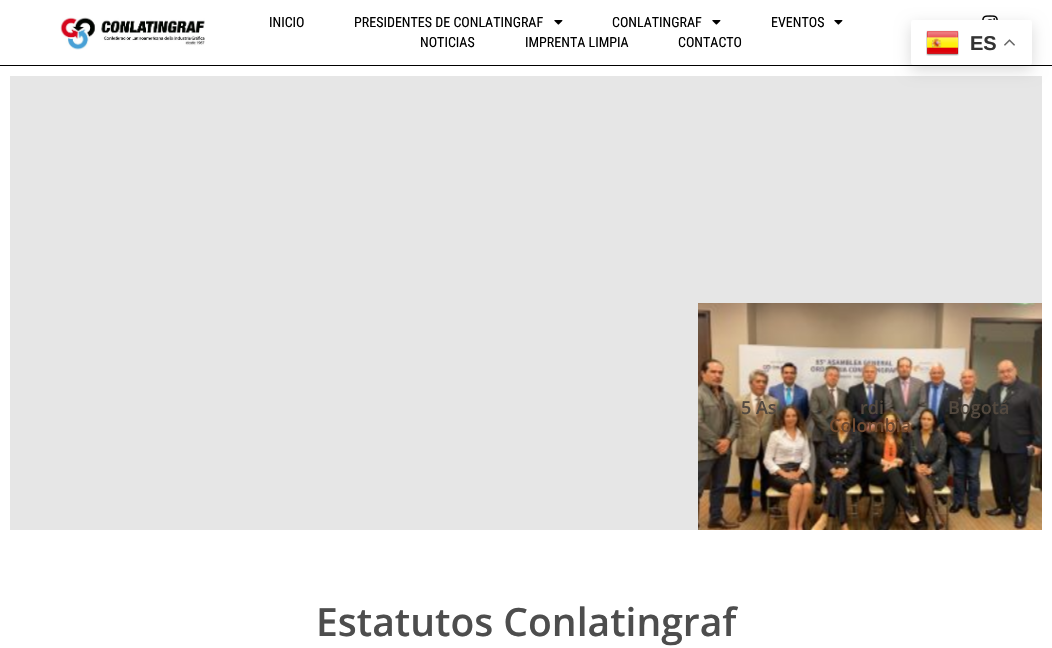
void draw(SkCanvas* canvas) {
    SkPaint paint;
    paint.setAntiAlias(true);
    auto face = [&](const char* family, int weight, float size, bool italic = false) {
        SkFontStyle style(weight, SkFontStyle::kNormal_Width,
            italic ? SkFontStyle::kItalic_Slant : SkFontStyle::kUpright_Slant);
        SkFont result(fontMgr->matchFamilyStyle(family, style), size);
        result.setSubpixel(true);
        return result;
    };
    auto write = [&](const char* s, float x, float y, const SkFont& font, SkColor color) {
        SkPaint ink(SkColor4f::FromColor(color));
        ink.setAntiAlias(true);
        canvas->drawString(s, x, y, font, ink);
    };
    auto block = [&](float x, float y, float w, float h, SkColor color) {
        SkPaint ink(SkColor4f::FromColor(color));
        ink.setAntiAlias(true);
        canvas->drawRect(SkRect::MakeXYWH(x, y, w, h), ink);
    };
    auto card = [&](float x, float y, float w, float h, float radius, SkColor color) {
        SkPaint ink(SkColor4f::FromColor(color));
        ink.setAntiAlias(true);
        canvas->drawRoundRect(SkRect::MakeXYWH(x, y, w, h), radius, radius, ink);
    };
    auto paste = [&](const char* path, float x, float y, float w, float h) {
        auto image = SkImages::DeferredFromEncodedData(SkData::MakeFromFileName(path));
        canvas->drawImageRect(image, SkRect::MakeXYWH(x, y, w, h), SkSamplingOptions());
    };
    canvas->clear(SK_ColorWHITE);
    block(0, 65, 1052, 1, SK_ColorBLACK);
    paste("pic1.png", 60, 17, 145, 33);
    auto kFont1 = face("Roboto Condensed", 400, 14);
    write("INICIO", 269, 27, kFont1, SK_ColorBLACK);
    write("PRESIDENTES DE CONLATINGRAF", 354, 27, kFont1, SK_ColorBLACK);
    paste("pic2.png", 554, 20, 9, 5);
    write("CONLATINGRAF", 612, 27, kFont1, SK_ColorBLACK);
    paste("pic2.png", 712, 20, 9, 5);
    write("EVENTOS", 771, 27, kFont1, SK_ColorBLACK);
    paste("pic2.png", 834, 20, 9, 5);
    write("NOTICIAS", 420, 47, kFont1, SK_ColorBLACK);
    write("IMPRENTA LIMPIA", 525, 47, kFont1, SK_ColorBLACK);
    write("CONTACTO", 678, 47, kFont1, SK_ColorBLACK);
    paste("pic3.png", 982, 15, 16, 5);
    block(10, 76, 1032, 227, SkColorSetRGB(230, 230, 230));
    block(10, 303, 688, 227, SkColorSetRGB(230, 230, 230));
    paste("pic4.png", 698, 303, 344, 227);
    auto kFont2 = face("Open Sans", 600, 18);
    write("5 As", 741, 414, kFont2, SkColorSetRGB(83, 73, 63));
    write("rdi", 860, 414, kFont2, SkColorSetRGB(83, 73, 63));
    write("Bogotá", 948, 414, kFont2, SkColorSetRGB(83, 73, 63));
    write("Colombia", 829, 432, kFont2, SkColorSetRGB(112, 74, 49));
    paint.setColor(SkColorSetARGB(38, 0, 0, 0));
    paint.setMaskFilter(SkMaskFilter::MakeBlur(kNormal_SkBlurStyle, 7.5f));
    canvas->drawRoundRect(SkRect::MakeXYWH(911, 25, 121, 45), 2, 2, paint);
    paint.setMaskFilter(nullptr);
    card(911, 20, 121, 45, 2, SK_ColorWHITE);
    paste("pic5.png", 926, 30, 33, 26);
    auto kFont3 = face("Liberation Sans", 700, 20);
    write("ES", 970, 50, kFont3, SkColorSetRGB(51, 51, 51));
    paste("pic6.png", 1004, 39, 11, 7);
    auto kFont4 = face("Open Sans", 600, 39);
    write("Estatutos Conlatingraf", 316, 636, kFont4, SkColorSetRGB(77, 77, 77));
}
